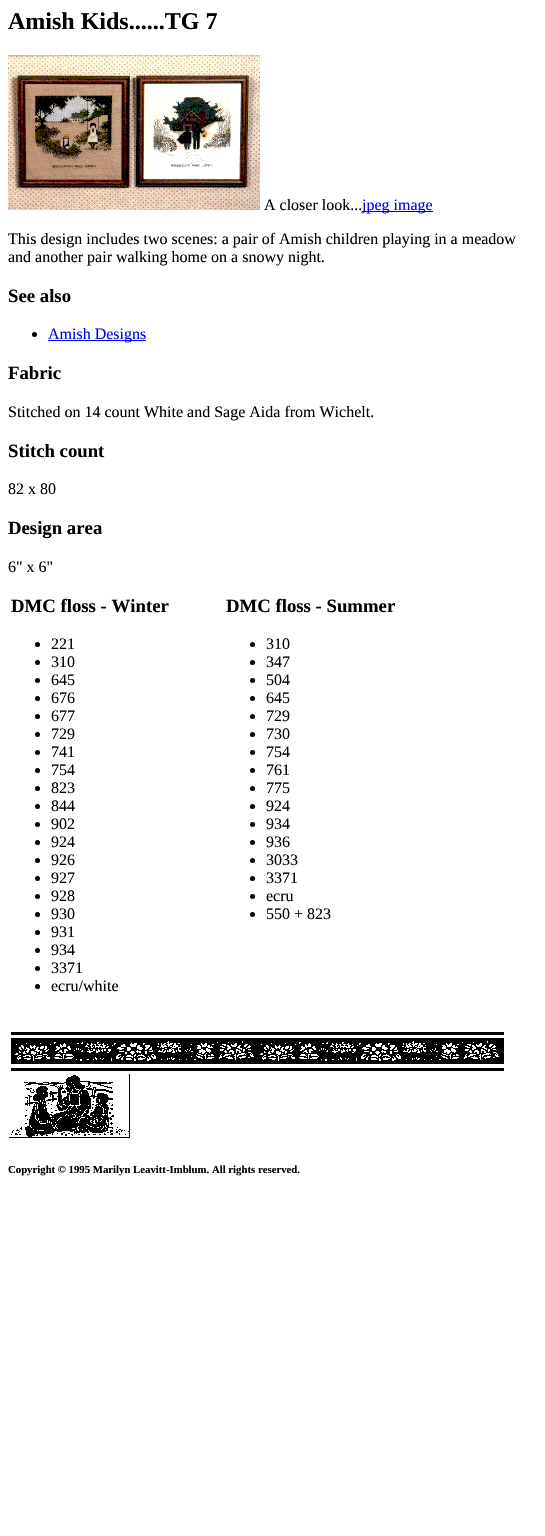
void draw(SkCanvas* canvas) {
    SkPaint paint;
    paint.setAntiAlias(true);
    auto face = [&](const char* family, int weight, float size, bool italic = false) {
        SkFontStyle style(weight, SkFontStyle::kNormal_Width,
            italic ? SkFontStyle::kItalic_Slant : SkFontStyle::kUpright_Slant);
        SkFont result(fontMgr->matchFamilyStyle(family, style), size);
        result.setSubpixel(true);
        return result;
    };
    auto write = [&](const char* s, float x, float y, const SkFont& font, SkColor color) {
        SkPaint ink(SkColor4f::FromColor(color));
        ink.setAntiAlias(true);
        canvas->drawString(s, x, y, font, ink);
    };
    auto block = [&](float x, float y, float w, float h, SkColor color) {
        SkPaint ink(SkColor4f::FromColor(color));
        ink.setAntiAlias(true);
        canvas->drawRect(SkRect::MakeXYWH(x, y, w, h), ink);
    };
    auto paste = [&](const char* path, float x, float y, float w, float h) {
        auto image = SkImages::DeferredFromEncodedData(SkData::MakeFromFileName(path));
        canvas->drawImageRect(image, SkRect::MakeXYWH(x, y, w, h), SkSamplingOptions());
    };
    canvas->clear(SK_ColorWHITE);
    auto kFont1 = face("Liberation Serif", 700, 24);
    write("Amish Kids......TG 7", 8, 29, kFont1, SK_ColorBLACK);
    paste("pic1.png", 8, 55, 252, 155);
    auto kFont2 = face("Liberation Serif", 400, 16);
    write("A closer look...", 264, 210, kFont2, SK_ColorBLACK);
    block(362, 211, 71, 1, SkColorSetRGB(0, 0, 238));
    write("jpeg image", 362, 210, kFont2, SkColorSetRGB(0, 0, 238));
    write("This design includes two scenes: a pair of Amish children playing in a meadow", 8, 244, kFont2, SK_ColorBLACK);
    write("and another pair walking home on a snowy night.", 8, 262, kFont2, SK_ColorBLACK);
    auto kFont3 = face("Liberation Serif", 700, 18.75f);
    write("See also", 8, 302, kFont3, SK_ColorBLACK);
    paint.setColor(SK_ColorBLACK);
    canvas->drawCircle(34.5f, 334.5f, 2.5f, paint);
    block(48, 340, 98, 1, SkColorSetRGB(0, 0, 238));
    write("Amish Designs", 48, 339, kFont2, SkColorSetRGB(0, 0, 238));
    write("Fabric", 8, 379, kFont3, SK_ColorBLACK);
    write("Stitched on 14 count White and Sage Aida from Wichelt.", 8, 417, kFont2, SK_ColorBLACK);
    write("Stitch count", 8, 457, kFont3, SK_ColorBLACK);
    write("82 x 80", 8, 494, kFont2, SK_ColorBLACK);
    write("Design area", 8, 534, kFont3, SK_ColorBLACK);
    write("6\" x 6\"", 8, 572, kFont2, SK_ColorBLACK);
    write("DMC floss - Winter", 11, 612, kFont3, SK_ColorBLACK);
    canvas->drawCircle(37.5f, 644.5f, 2.5f, paint);
    write("221", 51, 649, kFont2, SK_ColorBLACK);
    canvas->drawCircle(37.5f, 662.5f, 2.5f, paint);
    write("310", 51, 667, kFont2, SK_ColorBLACK);
    canvas->drawCircle(37.5f, 680.5f, 2.5f, paint);
    write("645", 51, 685, kFont2, SK_ColorBLACK);
    canvas->drawCircle(37.5f, 698.5f, 2.5f, paint);
    write("676", 51, 703, kFont2, SK_ColorBLACK);
    canvas->drawCircle(37.5f, 716.5f, 2.5f, paint);
    write("677", 51, 721, kFont2, SK_ColorBLACK);
    canvas->drawCircle(37.5f, 734.5f, 2.5f, paint);
    write("729", 51, 739, kFont2, SK_ColorBLACK);
    canvas->drawCircle(37.5f, 752.5f, 2.5f, paint);
    write("741", 51, 757, kFont2, SK_ColorBLACK);
    canvas->drawCircle(37.5f, 770.5f, 2.5f, paint);
    write("754", 51, 775, kFont2, SK_ColorBLACK);
    canvas->drawCircle(37.5f, 788.5f, 2.5f, paint);
    write("823", 51, 793, kFont2, SK_ColorBLACK);
    canvas->drawCircle(37.5f, 806.5f, 2.5f, paint);
    write("844", 51, 811, kFont2, SK_ColorBLACK);
    canvas->drawCircle(37.5f, 824.5f, 2.5f, paint);
    write("902", 51, 829, kFont2, SK_ColorBLACK);
    canvas->drawCircle(37.5f, 842.5f, 2.5f, paint);
    write("924", 51, 847, kFont2, SK_ColorBLACK);
    canvas->drawCircle(37.5f, 860.5f, 2.5f, paint);
    write("926", 51, 865, kFont2, SK_ColorBLACK);
    canvas->drawCircle(37.5f, 878.5f, 2.5f, paint);
    write("927", 51, 883, kFont2, SK_ColorBLACK);
    canvas->drawCircle(37.5f, 896.5f, 2.5f, paint);
    write("928", 51, 901, kFont2, SK_ColorBLACK);
    canvas->drawCircle(37.5f, 914.5f, 2.5f, paint);
    write("930", 51, 919, kFont2, SK_ColorBLACK);
    canvas->drawCircle(37.5f, 932.5f, 2.5f, paint);
    write("931", 51, 937, kFont2, SK_ColorBLACK);
    canvas->drawCircle(37.5f, 950.5f, 2.5f, paint);
    write("934", 51, 955, kFont2, SK_ColorBLACK);
    canvas->drawCircle(37.5f, 968.5f, 2.5f, paint);
    write("3371", 51, 973, kFont2, SK_ColorBLACK);
    canvas->drawCircle(37.5f, 986.5f, 2.5f, paint);
    write("ecru/white", 51, 991, kFont2, SK_ColorBLACK);
    write("DMC floss - Summer", 226, 612, kFont3, SK_ColorBLACK);
    canvas->drawCircle(252.5f, 644.5f, 2.5f, paint);
    write("310", 266, 649, kFont2, SK_ColorBLACK);
    canvas->drawCircle(252.5f, 662.5f, 2.5f, paint);
    write("347", 266, 667, kFont2, SK_ColorBLACK);
    canvas->drawCircle(252.5f, 680.5f, 2.5f, paint);
    write("504", 266, 685, kFont2, SK_ColorBLACK);
    canvas->drawCircle(252.5f, 698.5f, 2.5f, paint);
    write("645", 266, 703, kFont2, SK_ColorBLACK);
    canvas->drawCircle(252.5f, 716.5f, 2.5f, paint);
    write("729", 266, 721, kFont2, SK_ColorBLACK);
    canvas->drawCircle(252.5f, 734.5f, 2.5f, paint);
    write("730", 266, 739, kFont2, SK_ColorBLACK);
    canvas->drawCircle(252.5f, 752.5f, 2.5f, paint);
    write("754", 266, 757, kFont2, SK_ColorBLACK);
    canvas->drawCircle(252.5f, 770.5f, 2.5f, paint);
    write("761", 266, 775, kFont2, SK_ColorBLACK);
    canvas->drawCircle(252.5f, 788.5f, 2.5f, paint);
    write("775", 266, 793, kFont2, SK_ColorBLACK);
    canvas->drawCircle(252.5f, 806.5f, 2.5f, paint);
    write("924", 266, 811, kFont2, SK_ColorBLACK);
    canvas->drawCircle(252.5f, 824.5f, 2.5f, paint);
    write("934", 266, 829, kFont2, SK_ColorBLACK);
    canvas->drawCircle(252.5f, 842.5f, 2.5f, paint);
    write("936", 266, 847, kFont2, SK_ColorBLACK);
    canvas->drawCircle(252.5f, 860.5f, 2.5f, paint);
    write("3033", 266, 865, kFont2, SK_ColorBLACK);
    canvas->drawCircle(252.5f, 878.5f, 2.5f, paint);
    write("3371", 266, 883, kFont2, SK_ColorBLACK);
    canvas->drawCircle(252.5f, 896.5f, 2.5f, paint);
    write("ecru", 266, 901, kFont2, SK_ColorBLACK);
    canvas->drawCircle(252.5f, 914.5f, 2.5f, paint);
    write("550 + 823", 266, 919, kFont2, SK_ColorBLACK);
    paste("pic2.png", 11, 1032, 493, 39);
    paste("pic3.png", 9, 1074, 121, 64);
    auto kFont4 = face("Liberation Serif", 700, 10.75f);
    write("Copyright © 1995 Marilyn Leavitt-Imblum. All rights reserved.", 8, 1173, kFont4, SK_ColorBLACK);
}
